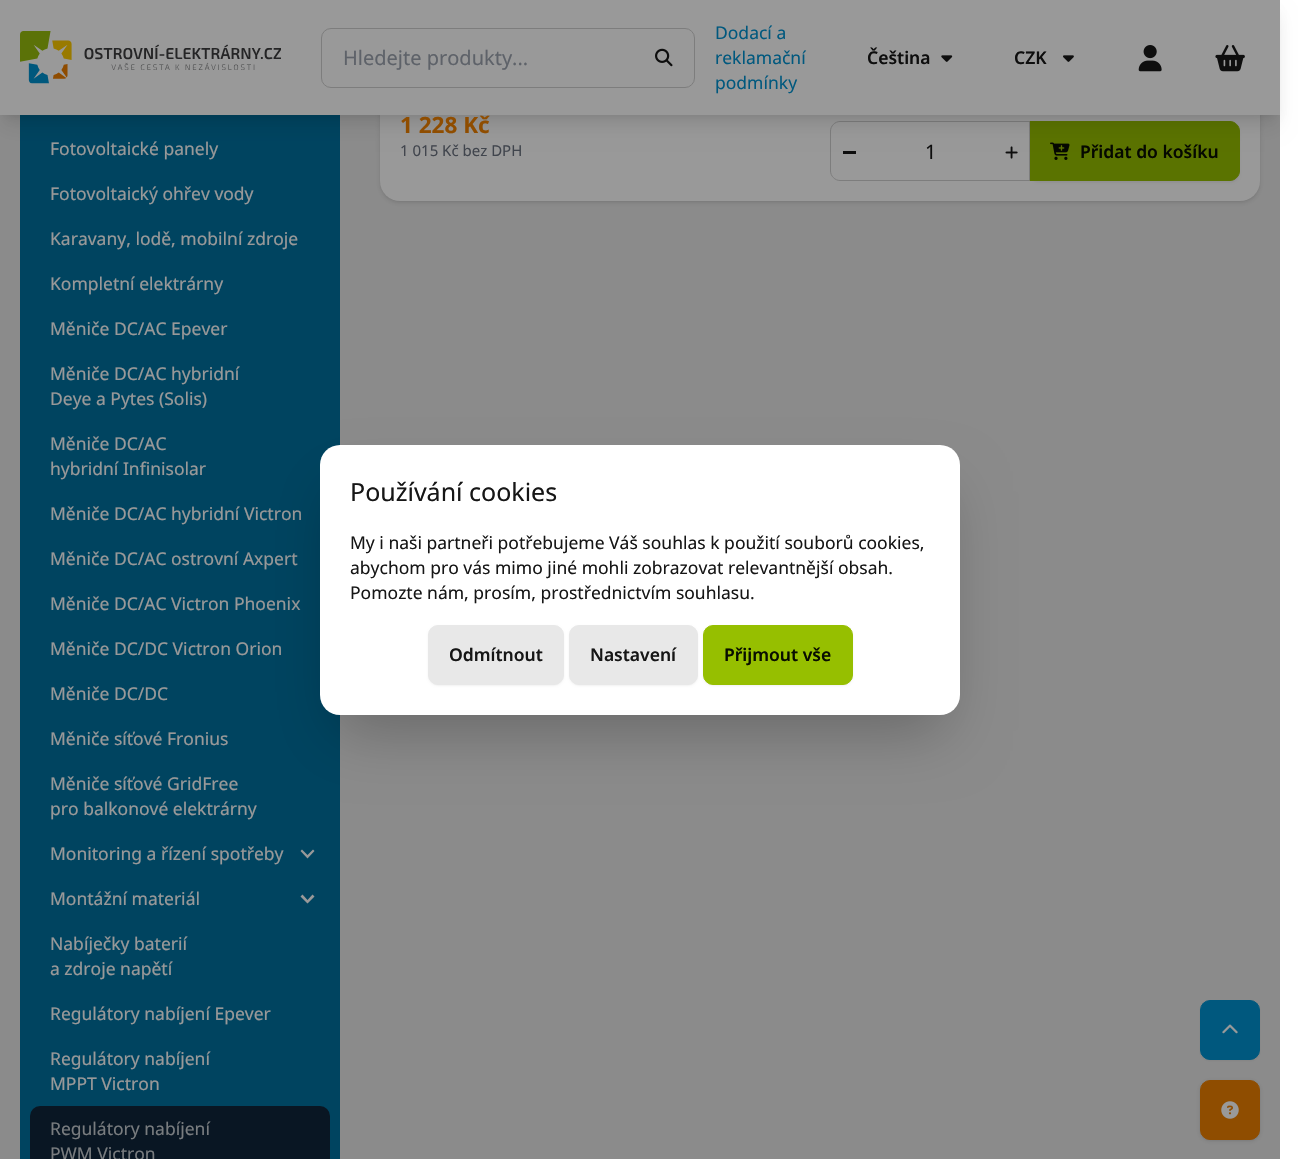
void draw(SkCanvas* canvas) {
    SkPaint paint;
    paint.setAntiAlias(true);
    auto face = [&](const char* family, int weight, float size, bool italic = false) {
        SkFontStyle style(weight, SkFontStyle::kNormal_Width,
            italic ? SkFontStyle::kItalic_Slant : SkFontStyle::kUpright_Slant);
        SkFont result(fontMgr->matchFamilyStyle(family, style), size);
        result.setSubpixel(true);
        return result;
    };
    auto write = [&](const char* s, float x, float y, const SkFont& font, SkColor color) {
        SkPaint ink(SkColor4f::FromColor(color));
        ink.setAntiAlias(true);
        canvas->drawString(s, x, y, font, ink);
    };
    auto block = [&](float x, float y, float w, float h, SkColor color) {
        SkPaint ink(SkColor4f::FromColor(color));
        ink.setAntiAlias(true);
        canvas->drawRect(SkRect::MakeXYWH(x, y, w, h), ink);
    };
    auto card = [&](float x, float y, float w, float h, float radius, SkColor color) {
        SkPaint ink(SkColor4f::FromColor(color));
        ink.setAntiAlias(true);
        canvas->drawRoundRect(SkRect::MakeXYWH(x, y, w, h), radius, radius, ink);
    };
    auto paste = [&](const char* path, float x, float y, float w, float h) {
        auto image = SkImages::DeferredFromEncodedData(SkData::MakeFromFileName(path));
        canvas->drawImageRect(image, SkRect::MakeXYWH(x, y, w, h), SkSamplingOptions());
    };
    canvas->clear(SK_ColorWHITE);
    block(0, 115, 1280, 1044, SkColorSetRGB(232, 232, 232));
    block(20, 115, 320, 1044, SkColorSetRGB(0, 113, 160));
    paint.setColor(SkColorSetARGB(26, 0, 0, 0));
    paint.setMaskFilter(SkMaskFilter::MakeBlur(kNormal_SkBlurStyle, 1));
    canvas->drawRoundRect(SkRect::MakeXYWH(381, -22, 878, 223), 19, 19, paint);
    paint.setMaskFilter(nullptr);
    paint.setMaskFilter(SkMaskFilter::MakeBlur(kNormal_SkBlurStyle, 2));
    canvas->drawRoundRect(SkRect::MakeXYWH(380, -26, 880, 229), 20, 20, paint);
    paint.setMaskFilter(nullptr);
    card(380, -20, 880, 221, 20, SK_ColorWHITE);
    paint.setColor(SkColorSetARGB(13, 0, 0, 0));
    paint.setMaskFilter(SkMaskFilter::MakeBlur(kNormal_SkBlurStyle, 1));
    canvas->drawRoundRect(SkRect::MakeXYWH(1029, 123, 211, 60), 10, 10, paint);
    paint.setMaskFilter(nullptr);
    paint.setColor(SkColorSetRGB(150, 191, 0));
    canvas->drawPath(SkPathBuilder().moveTo(1029.5f, 121.5f).lineTo(1230, 121.5f).cubicTo(1235, 121.5f, 1239.5f, 126, 1239.5f, 131).lineTo(1239.5f, 171).cubicTo(1239.5f, 176, 1235, 180.5f, 1230, 180.5f).lineTo(1029.5f, 180.5f).close().detach(), paint);
    paint.setStyle(SkPaint::kStroke_Style);
    paint.setStrokeWidth(1);
    canvas->drawPath(SkPathBuilder().moveTo(1029.5f, 121.5f).lineTo(1230, 121.5f).cubicTo(1235, 121.5f, 1239.5f, 126, 1239.5f, 131).lineTo(1239.5f, 171).cubicTo(1239.5f, 176, 1235, 180.5f, 1230, 180.5f).lineTo(1029.5f, 180.5f).close().detach(), paint);
    paint.setStyle(SkPaint::kFill_Style);
    paint.setColor(SK_ColorWHITE);
    canvas->drawPath(SkPathBuilder().moveTo(840, 121.5f).lineTo(1029.5f, 121.5f).lineTo(1029.5f, 180.5f).lineTo(840, 180.5f).cubicTo(835, 180.5f, 830.5f, 176, 830.5f, 171).lineTo(830.5f, 131).cubicTo(830.5f, 126, 835, 121.5f, 840, 121.5f).close().detach(), paint);
    paint.setStyle(SkPaint::kStroke_Style);
    paint.setColor(SkColorSetRGB(208, 208, 208));
    canvas->drawPath(SkPathBuilder().moveTo(840, 121.5f).lineTo(1029.5f, 121.5f).lineTo(1029.5f, 180.5f).lineTo(840, 180.5f).cubicTo(835, 180.5f, 830.5f, 176, 830.5f, 171).lineTo(830.5f, 131).cubicTo(830.5f, 126, 835, 121.5f, 840, 121.5f).close().detach(), paint);
    paint.setStyle(SkPaint::kFill_Style);
    paint.setColor(SkColorSetARGB(26, 0, 0, 0));
    paint.setMaskFilter(SkMaskFilter::MakeBlur(kNormal_SkBlurStyle, 4));
    canvas->drawRect(SkRect::MakeXYWH(5, 10, 1270, 105), paint);
    paint.setMaskFilter(nullptr);
    block(843, 151, 13, 3, SkColorSetRGB(22, 22, 22));
    paste("pic7.png", 1005, 146, 13, 13);
    paste("pic8.png", 1050, 142, 20, 18);
    paint.setMaskFilter(SkMaskFilter::MakeBlur(kNormal_SkBlurStyle, 9.5f));
    canvas->drawRect(SkRect::MakeXYWH(4, 16, 1272, 108), paint);
    paint.setMaskFilter(nullptr);
    block(0, 0, 1280, 115, SK_ColorWHITE);
    paste("pic1.png", 20, 31, 261, 53);
    paint.setStyle(SkPaint::kStroke_Style);
    paint.setColor(SkColorSetRGB(208, 208, 208));
    canvas->drawRoundRect(SkRect::MakeXYWH(321.5f, 28.5f, 373, 59), 9.5f, 9.5f, paint);
    auto kFont1 = face("Noto Sans", 400, 20);
    write("Hledejte produkty...", 343, 65, kFont1, SkColorSetRGB(156, 163, 175));
    paste("pic2.png", 655, 48, 18, 19);
    auto kFont2 = face("Noto Sans", 400, 17.5f);
    write("Dodací a", 715, 39, kFont2, SkColorSetRGB(0, 147, 210));
    write("reklamační", 715, 64, kFont2, SkColorSetRGB(0, 147, 210));
    write("podmínky", 715, 89, kFont2, SkColorSetRGB(0, 147, 210));
    auto kFont3 = face("Noto Sans", 600, 17.5f);
    write("Čeština", 867, 64, kFont3, SkColorSetRGB(22, 22, 22));
    paste("pic3.png", 941, 55, 12, 7);
    write("CZK", 1014, 64, kFont3, SkColorSetRGB(22, 22, 22));
    paste("pic4.png", 1063, 55, 11, 7);
    paste("pic5.png", 1138, 45, 24, 27);
    paste("pic6.png", 1215, 45, 30, 27);
    write("Fotovoltaické panely", 50, 155, kFont2, SK_ColorWHITE);
    write("Fotovoltaický ohřev vody", 50, 200, kFont2, SK_ColorWHITE);
    write("Karavany, lodě, mobilní zdroje", 50, 245, kFont2, SK_ColorWHITE);
    write("Kompletní elektrárny", 50, 290, kFont2, SK_ColorWHITE);
    write("Měniče DC/AC Epever", 50, 335, kFont2, SK_ColorWHITE);
    write("Měniče DC/AC hybridní", 50, 380, kFont2, SK_ColorWHITE);
    write("Deye a Pytes (Solis)", 50, 405, kFont2, SK_ColorWHITE);
    write("Měniče DC/AC", 50, 450, kFont2, SK_ColorWHITE);
    write("hybridní Infinisolar", 50, 475, kFont2, SK_ColorWHITE);
    write("Měniče DC/AC hybridní Victron", 50, 520, kFont2, SK_ColorWHITE);
    write("Měniče DC/AC ostrovní Axpert", 50, 565, kFont2, SK_ColorWHITE);
    write("Měniče DC/AC Victron Phoenix", 50, 610, kFont2, SK_ColorWHITE);
    write("Měniče DC/DC Victron Orion", 50, 655, kFont2, SK_ColorWHITE);
    write("Měniče DC/DC", 50, 700, kFont2, SK_ColorWHITE);
    write("Měniče síťové Fronius", 50, 745, kFont2, SK_ColorWHITE);
    write("Měniče síťové GridFree", 50, 790, kFont2, SK_ColorWHITE);
    write("pro balkonové elektrárny", 50, 815, kFont2, SK_ColorWHITE);
    write("Monitoring a řízení spotřeby", 50, 860, kFont2, SK_ColorWHITE);
    paint.setStyle(SkPaint::kFill_Style);
    paint.setColor(SK_ColorWHITE);
    canvas->drawPath(SkPathBuilder().moveTo(313, 849.5f).lineTo(307.5f, 855).lineTo(302, 849.5f).lineTo(300.5f, 851).lineTo(307.5f, 858.5f).lineTo(314.5f, 851).close().detach(), paint);
    write("Montážní materiál", 50, 905, kFont2, SK_ColorWHITE);
    canvas->drawPath(SkPathBuilder().moveTo(312.5f, 894.5f).lineTo(307.5f, 900).lineTo(302.5f, 894.5f).lineTo(300.5f, 896.5f).lineTo(307.5f, 903.5f).lineTo(314.5f, 896.5f).close().detach(), paint);
    write("Nabíječky baterií", 50, 950, kFont2, SK_ColorWHITE);
    write("a zdroje napětí", 50, 975, kFont2, SK_ColorWHITE);
    write("Regulátory nabíjení Epever", 50, 1020, kFont2, SK_ColorWHITE);
    write("Regulátory nabíjení", 50, 1065, kFont2, SK_ColorWHITE);
    write("MPPT Victron", 50, 1090, kFont2, SK_ColorWHITE);
    card(30, 1106, 300, 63, 10, SkColorSetRGB(14, 36, 57));
    write("Regulátory nabíjení", 50, 1135, kFont2, SkColorSetRGB(201, 207, 212));
    write("PWM Victron", 50, 1160, kFont2, SkColorSetRGB(201, 207, 212));
    auto kFont4 = face("Noto Sans", 700, 22.5f);
    write("1 228 Kč", 400, 133, kFont4, SkColorSetRGB(239, 128, 0));
    auto kFont5 = face("Noto Sans", 400, 15);
    write("1 015 Kč bez DPH", 400, 156, kFont5, SkColorSetRGB(107, 114, 128));
    write("1", 925, 159, kFont1, SkColorSetRGB(22, 22, 22));
    write("Přidat do košíku", 1080, 158, kFont3, SkColorSetRGB(8, 13, 0));
    paint.setColor(SkColorSetARGB(13, 0, 0, 0));
    paint.setMaskFilter(SkMaskFilter::MakeBlur(kNormal_SkBlurStyle, 1));
    canvas->drawRoundRect(SkRect::MakeXYWH(1200, 1001, 60, 60), 10, 10, paint);
    paint.setMaskFilter(nullptr);
    paint.setColor(SkColorSetRGB(0, 147, 210));
    canvas->drawRoundRect(SkRect::MakeXYWH(1200.5f, 1000.5f, 59, 59), 9.5f, 9.5f, paint);
    paint.setStyle(SkPaint::kStroke_Style);
    canvas->drawRoundRect(SkRect::MakeXYWH(1200.5f, 1000.5f, 59, 59), 9.5f, 9.5f, paint);
    paste("pic9.png", 1222, 1024, 16, 10);
    paint.setStyle(SkPaint::kFill_Style);
    paint.setColor(SkColorSetARGB(26, 0, 0, 0));
    paint.setMaskFilter(SkMaskFilter::MakeBlur(kNormal_SkBlurStyle, 1));
    canvas->drawRoundRect(SkRect::MakeXYWH(1201, 1083, 58, 57), 9, 9, paint);
    paint.setMaskFilter(nullptr);
    paint.setMaskFilter(SkMaskFilter::MakeBlur(kNormal_SkBlurStyle, 2));
    canvas->drawRoundRect(SkRect::MakeXYWH(1200, 1081, 60, 60), 10, 10, paint);
    paint.setMaskFilter(nullptr);
    paint.setColor(SkColorSetRGB(239, 128, 0));
    canvas->drawRoundRect(SkRect::MakeXYWH(1200.5f, 1080.5f, 59, 59), 9.5f, 9.5f, paint);
    paint.setStyle(SkPaint::kStroke_Style);
    canvas->drawRoundRect(SkRect::MakeXYWH(1200.5f, 1080.5f, 59, 59), 9.5f, 9.5f, paint);
    paste("pic10.png", 1221, 1101, 18, 18);
    block(0, 0, 1280, 1159, SkColorSetARGB(102, 0, 0, 0));
    paint.setStyle(SkPaint::kFill_Style);
    paint.setColor(SkColorSetARGB(64, 0, 0, 0));
    paint.setMaskFilter(SkMaskFilter::MakeBlur(kNormal_SkBlurStyle, 31));
    canvas->drawRoundRect(SkRect::MakeXYWH(335, 491, 610, 240), 5, 5, paint);
    paint.setMaskFilter(nullptr);
    card(320, 445, 640, 270, 20, SK_ColorWHITE);
    auto kFont6 = face("Noto Sans", 400, 25);
    write("Používání cookies", 350, 501, kFont6, SkColorSetRGB(22, 22, 22));
    write("My i naši partneři potřebujeme Váš souhlas k použití souborů cookies,", 350, 549, kFont2, SkColorSetRGB(22, 22, 22));
    write("abychom pro vás mimo jiné mohli zobrazovat relevantnější obsah.", 350, 574, kFont2, SkColorSetRGB(22, 22, 22));
    write("Pomozte nám, prosím, prostřednictvím souhlasu.", 350, 599, kFont2, SkColorSetRGB(22, 22, 22));
    paint.setColor(SkColorSetARGB(13, 0, 0, 0));
    paint.setMaskFilter(SkMaskFilter::MakeBlur(kNormal_SkBlurStyle, 1));
    canvas->drawRoundRect(SkRect::MakeXYWH(428, 626, 136, 60), 10, 10, paint);
    paint.setMaskFilter(nullptr);
    paint.setColor(SkColorSetRGB(232, 232, 232));
    canvas->drawRoundRect(SkRect::MakeXYWH(428.5f, 625.5f, 135, 59), 9.5f, 9.5f, paint);
    paint.setStyle(SkPaint::kStroke_Style);
    canvas->drawRoundRect(SkRect::MakeXYWH(428.5f, 625.5f, 135, 59), 9.5f, 9.5f, paint);
    write("Odmítnout", 449, 661, kFont3, SkColorSetRGB(22, 22, 22));
    paint.setStyle(SkPaint::kFill_Style);
    paint.setColor(SkColorSetARGB(13, 0, 0, 0));
    paint.setMaskFilter(SkMaskFilter::MakeBlur(kNormal_SkBlurStyle, 1));
    canvas->drawRoundRect(SkRect::MakeXYWH(569, 626, 129, 60), 10, 10, paint);
    paint.setMaskFilter(nullptr);
    paint.setColor(SkColorSetRGB(232, 232, 232));
    canvas->drawRoundRect(SkRect::MakeXYWH(569.5f, 625.5f, 128, 59), 9.5f, 9.5f, paint);
    paint.setStyle(SkPaint::kStroke_Style);
    canvas->drawRoundRect(SkRect::MakeXYWH(569.5f, 625.5f, 128, 59), 9.5f, 9.5f, paint);
    write("Nastavení", 590, 661, kFont3, SkColorSetRGB(22, 22, 22));
    paint.setStyle(SkPaint::kFill_Style);
    paint.setColor(SkColorSetARGB(13, 0, 0, 0));
    paint.setMaskFilter(SkMaskFilter::MakeBlur(kNormal_SkBlurStyle, 1));
    canvas->drawRoundRect(SkRect::MakeXYWH(703, 626, 150, 60), 10, 10, paint);
    paint.setMaskFilter(nullptr);
    paint.setColor(SkColorSetRGB(150, 191, 0));
    canvas->drawRoundRect(SkRect::MakeXYWH(703.5f, 625.5f, 149, 59), 9.5f, 9.5f, paint);
    paint.setStyle(SkPaint::kStroke_Style);
    canvas->drawRoundRect(SkRect::MakeXYWH(703.5f, 625.5f, 149, 59), 9.5f, 9.5f, paint);
    write("Přijmout vše", 724, 661, kFont3, SkColorSetRGB(8, 13, 0));
}
